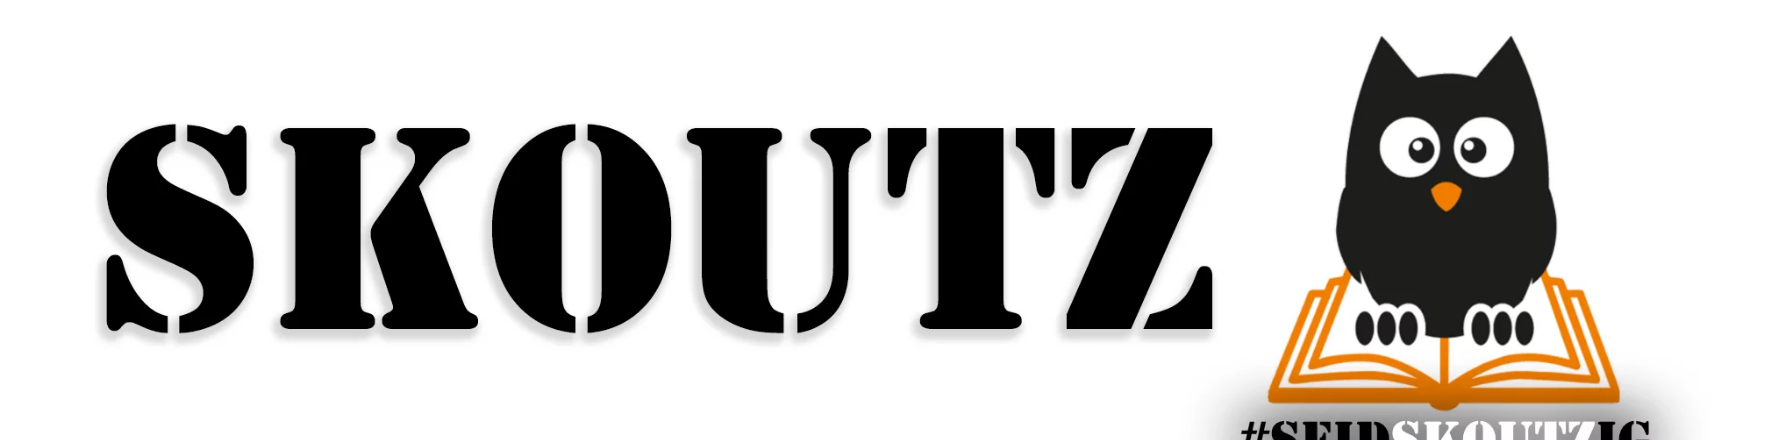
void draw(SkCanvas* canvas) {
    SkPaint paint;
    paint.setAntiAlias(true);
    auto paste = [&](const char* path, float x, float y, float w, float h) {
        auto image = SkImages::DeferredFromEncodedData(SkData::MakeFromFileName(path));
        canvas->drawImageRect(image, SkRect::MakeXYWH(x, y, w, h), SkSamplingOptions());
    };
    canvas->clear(SK_ColorWHITE);
    paste("pic1.png", 0, 0, 1771, 440);
}
